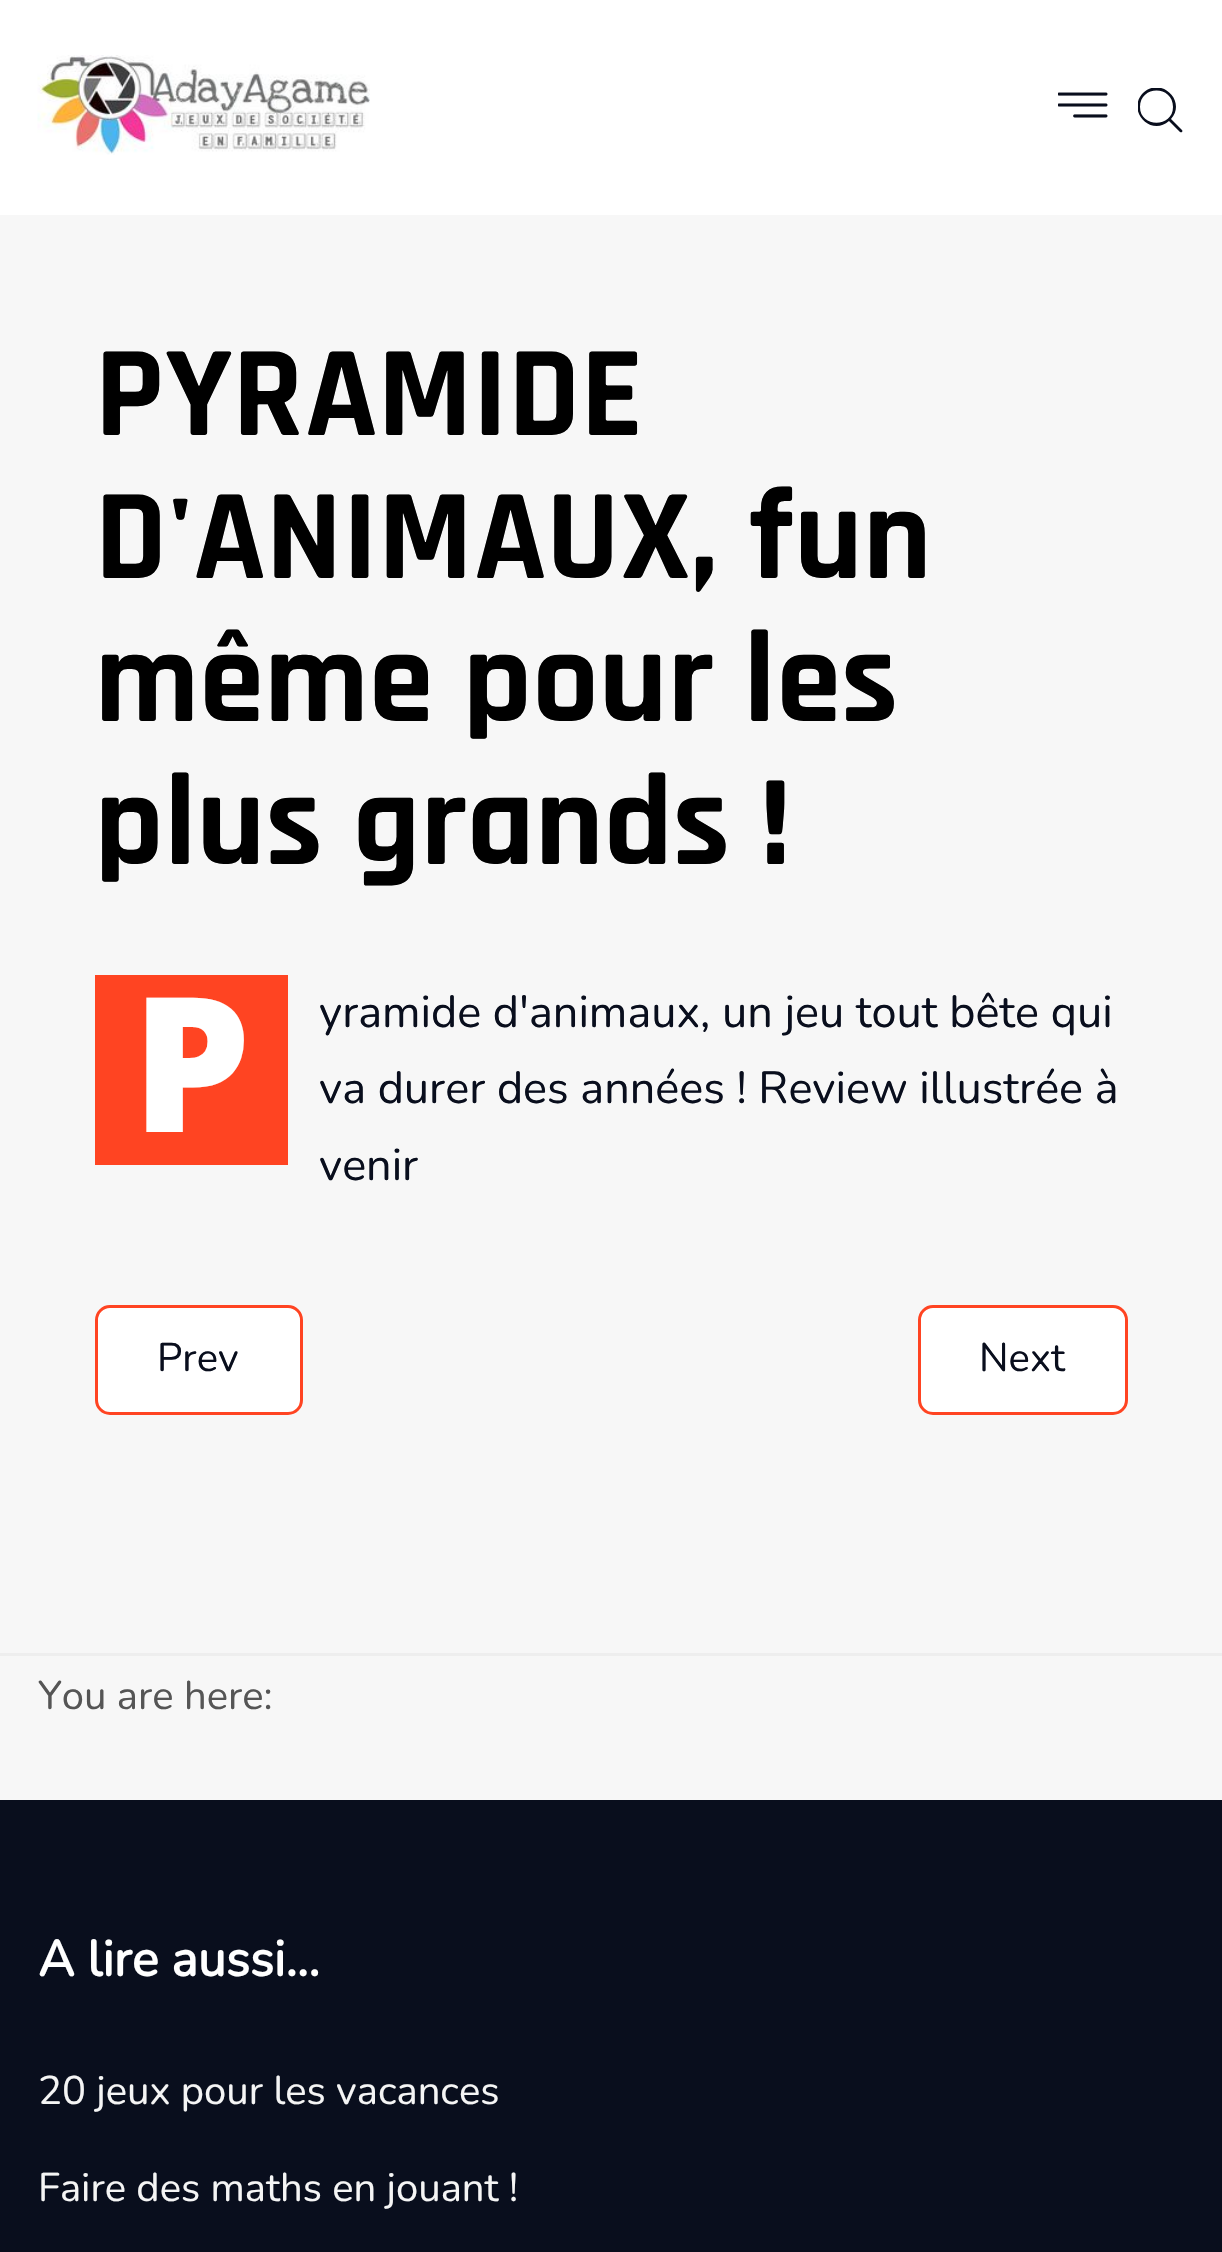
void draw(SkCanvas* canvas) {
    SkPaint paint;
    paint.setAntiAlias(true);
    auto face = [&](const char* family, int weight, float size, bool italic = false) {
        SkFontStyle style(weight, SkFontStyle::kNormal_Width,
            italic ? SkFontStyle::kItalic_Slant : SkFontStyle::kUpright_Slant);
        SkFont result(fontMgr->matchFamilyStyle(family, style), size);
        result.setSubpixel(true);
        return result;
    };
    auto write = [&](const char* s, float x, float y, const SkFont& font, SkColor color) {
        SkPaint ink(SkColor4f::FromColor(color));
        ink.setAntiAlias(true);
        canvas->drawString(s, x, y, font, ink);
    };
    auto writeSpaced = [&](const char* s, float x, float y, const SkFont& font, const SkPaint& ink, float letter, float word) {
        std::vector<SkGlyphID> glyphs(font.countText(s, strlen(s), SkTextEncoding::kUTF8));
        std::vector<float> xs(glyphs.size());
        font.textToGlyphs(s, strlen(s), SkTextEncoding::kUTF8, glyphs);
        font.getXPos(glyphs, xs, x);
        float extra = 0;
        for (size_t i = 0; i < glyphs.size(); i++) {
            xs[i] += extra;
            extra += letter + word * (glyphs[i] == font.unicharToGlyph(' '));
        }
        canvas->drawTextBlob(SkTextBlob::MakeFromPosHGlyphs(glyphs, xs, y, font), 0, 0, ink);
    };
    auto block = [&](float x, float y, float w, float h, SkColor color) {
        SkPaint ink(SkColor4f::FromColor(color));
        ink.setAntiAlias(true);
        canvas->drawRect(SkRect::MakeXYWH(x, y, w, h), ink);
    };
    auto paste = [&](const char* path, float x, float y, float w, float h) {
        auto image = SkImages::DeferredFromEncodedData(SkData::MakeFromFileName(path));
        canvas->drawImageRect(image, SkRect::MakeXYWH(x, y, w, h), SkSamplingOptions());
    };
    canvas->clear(SkColorSetRGB(247, 247, 247));
    block(0, 0, 1222, 215, SK_ColorWHITE);
    paste("pic1.png", 37, 55, 333, 100);
    paste("pic2.png", 1058, 92, 50, 26);
    canvas->save();
    canvas->clipRect(SkRect::MakeXYWH(1138, 88, 45, 45));
    paint.setColor(SkColorSetRGB(9, 14, 29));
    canvas->drawPath(SkPathBuilder().moveTo(1182, 130).lineTo(1171, 119).cubicTo(1187, 101, 1161, 76, 1143, 93).cubicTo(1126, 111, 1151, 137, 1169, 121).lineTo(1180, 132).cubicTo(1182, 133, 1183, 131, 1182, 130).close().moveTo(1140, 107).cubicTo(1140, 85, 1173, 85, 1173, 107).cubicTo(1173, 128, 1140, 128, 1140, 107).close().detach(), paint);
    canvas->restore();
    auto kFont1 = face("Rajdhani", 700, 130);
    paint.setColor(SK_ColorBLACK);
    writeSpaced("PYRAMIDE", 95, 435, kFont1, paint, 0.75f, 0);
    writeSpaced("D'ANIMAUX, fun", 95, 578, kFont1, paint, 0.75f, 0);
    writeSpaced("même pour les", 95, 721, kFont1, paint, 0.75f, 0);
    writeSpaced("plus grands !", 95, 864, kFont1, paint, 0.75f, 0);
    block(95, 975, 193, 190, SkColorSetRGB(255, 68, 34));
    auto kFont2 = face("Noto Sans", 900, 188);
    write("P", 132, 1132, kFont2, SK_ColorWHITE);
    auto kFont3 = face("Nunito", 400, 45);
    write("yramide d'animaux, un jeu tout bête qui", 319, 1027, kFont3, SkColorSetRGB(9, 14, 29));
    write("va durer des années ! Review illustrée à", 319, 1103, kFont3, SkColorSetRGB(9, 14, 29));
    write("venir", 319, 1180, kFont3, SkColorSetRGB(9, 14, 29));
    paint.setColor(SK_ColorWHITE);
    canvas->drawRoundRect(SkRect::MakeXYWH(96.5f, 1306.5f, 205, 107), 13.5f, 13.5f, paint);
    paint.setStyle(SkPaint::kStroke_Style);
    paint.setStrokeWidth(3);
    paint.setColor(SkColorSetRGB(255, 68, 34));
    canvas->drawRoundRect(SkRect::MakeXYWH(96.5f, 1306.5f, 205, 107), 13.5f, 13.5f, paint);
    auto kFont4 = face("Nunito", 400, 40);
    write("Prev", 157, 1371, kFont4, SkColorSetRGB(9, 14, 29));
    paint.setStyle(SkPaint::kFill_Style);
    paint.setColor(SK_ColorWHITE);
    canvas->drawRoundRect(SkRect::MakeXYWH(919.5f, 1306.5f, 207, 107), 13.5f, 13.5f, paint);
    paint.setStyle(SkPaint::kStroke_Style);
    paint.setColor(SkColorSetRGB(255, 68, 34));
    canvas->drawRoundRect(SkRect::MakeXYWH(919.5f, 1306.5f, 207, 107), 13.5f, 13.5f, paint);
    write("Next", 979, 1371, kFont4, SkColorSetRGB(9, 14, 29));
    block(0, 1653, 1222, 3, SkColorSetRGB(238, 238, 238));
    write("You are here:", 38, 1709, kFont4, SkColorSetRGB(85, 85, 85));
    block(0, 1800, 1222, 452, SkColorSetRGB(9, 14, 29));
    auto kFont5 = face("Nunito", 700, 50);
    write("A lire aussi...", 38, 1976, kFont5, SK_ColorWHITE);
    write("20 jeux pour les vacances", 38, 2104, kFont4, SkColorSetRGB(245, 245, 245));
    write("Faire des maths en jouant !", 38, 2201, kFont4, SkColorSetRGB(245, 245, 245));
}
